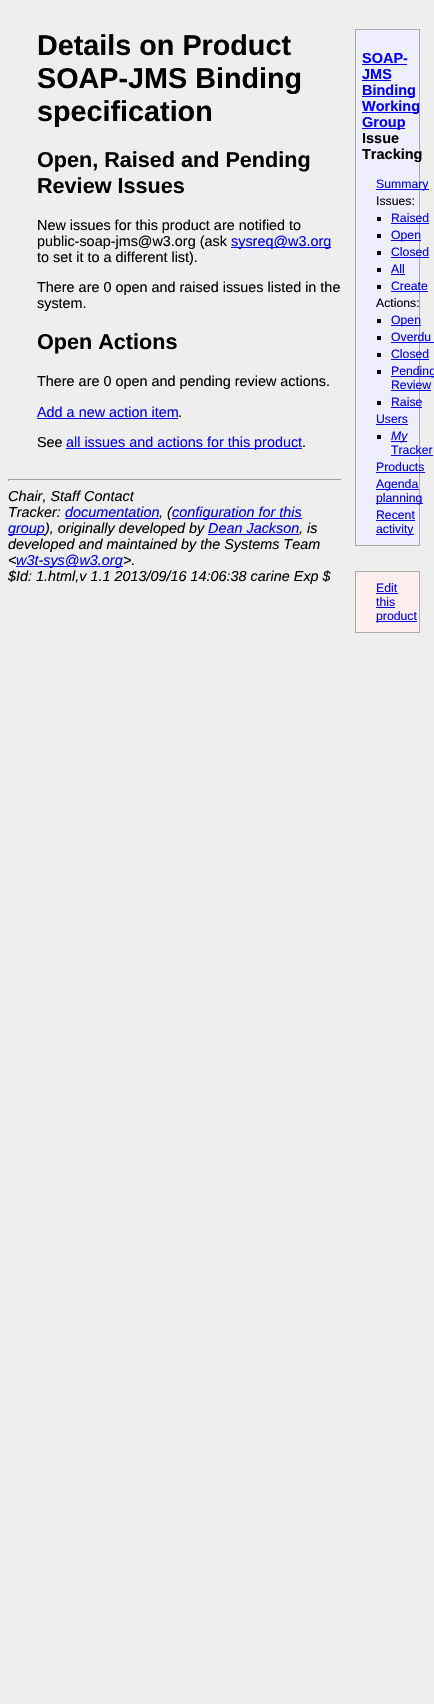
void draw(SkCanvas* canvas) {
    SkPaint paint;
    paint.setAntiAlias(true);
    auto face = [&](const char* family, int weight, float size, bool italic = false) {
        SkFontStyle style(weight, SkFontStyle::kNormal_Width,
            italic ? SkFontStyle::kItalic_Slant : SkFontStyle::kUpright_Slant);
        SkFont result(fontMgr->matchFamilyStyle(family, style), size);
        result.setSubpixel(true);
        return result;
    };
    auto write = [&](const char* s, float x, float y, const SkFont& font, SkColor color) {
        SkPaint ink(SkColor4f::FromColor(color));
        ink.setAntiAlias(true);
        canvas->drawString(s, x, y, font, ink);
    };
    auto block = [&](float x, float y, float w, float h, SkColor color) {
        SkPaint ink(SkColor4f::FromColor(color));
        ink.setAntiAlias(true);
        canvas->drawRect(SkRect::MakeXYWH(x, y, w, h), ink);
    };
    canvas->clear(SkColorSetRGB(238, 238, 238));
    auto kFont1 = face("Liberation Sans", 700, 28.75f);
    write("Details on Product", 37, 55, kFont1, SK_ColorBLACK);
    write("SOAP-JMS Binding", 37, 88, kFont1, SK_ColorBLACK);
    write("specification", 37, 121, kFont1, SK_ColorBLACK);
    auto kFont2 = face("Liberation Sans", 700, 21.6f);
    write("Open, Raised and Pending", 37, 167, kFont2, SK_ColorBLACK);
    write("Review Issues", 37, 193, kFont2, SK_ColorBLACK);
    auto kFont3 = face("Liberation Sans", 400, 14.4f);
    write("New issues for this product are notified to", 37, 230, kFont3, SK_ColorBLACK);
    write("public-soap-jms@w3.org (ask", 37, 246, kFont3, SK_ColorBLACK);
    block(231, 247, 100, 1, SkColorSetRGB(0, 0, 238));
    write("sysreq@w3.org", 231, 246, kFont3, SkColorSetRGB(0, 0, 238));
    write("to set it to a different list).", 37, 262, kFont3, SK_ColorBLACK);
    write("There are 0 open and raised issues listed in the", 37, 292, kFont3, SK_ColorBLACK);
    write("system.", 37, 308, kFont3, SK_ColorBLACK);
    write("Open Actions", 37, 349, kFont2, SK_ColorBLACK);
    write("There are 0 open and pending review actions.", 37, 386, kFont3, SK_ColorBLACK);
    write("Add a new action item", 37, 417, kFont3, SkColorSetRGB(0, 0, 238));
    block(37, 418, 141, 1, SkColorSetRGB(0, 0, 238));
    write(".", 178, 417, kFont3, SK_ColorBLACK);
    write("See", 37, 447, kFont3, SK_ColorBLACK);
    block(66, 448, 236, 1, SkColorSetRGB(0, 0, 238));
    write("all issues and actions for this product", 66, 447, kFont3, SkColorSetRGB(0, 0, 238));
    write(".", 302, 447, kFont3, SK_ColorBLACK);
    paint.setColor(SkColorSetRGB(238, 238, 255));
    canvas->drawRect(SkRect::MakeXYWH(355.5f, 29.5f, 64, 516), paint);
    paint.setStyle(SkPaint::kStroke_Style);
    paint.setStrokeWidth(1);
    paint.setColor(SkColorSetRGB(170, 170, 170));
    canvas->drawRect(SkRect::MakeXYWH(355.5f, 29.5f, 64, 516), paint);
    auto kFont4 = face("Liberation Sans", 700, 14.5f);
    write("SOAP-", 362, 63, kFont4, SkColorSetRGB(0, 0, 238));
    block(362, 64, 45, 1, SkColorSetRGB(0, 0, 238));
    write("JMS", 362, 79, kFont4, SkColorSetRGB(0, 0, 238));
    block(362, 80, 29, 1, SkColorSetRGB(0, 0, 238));
    block(362, 96, 53, 1, SkColorSetRGB(0, 0, 238));
    write("Binding", 362, 95, kFont4, SkColorSetRGB(0, 0, 238));
    block(362, 112, 57, 1, SkColorSetRGB(0, 0, 238));
    write("Working", 362, 111, kFont4, SkColorSetRGB(0, 0, 238));
    block(362, 128, 43, 1, SkColorSetRGB(0, 0, 238));
    write("Group", 362, 127, kFont4, SkColorSetRGB(0, 0, 238));
    write("Issue", 362, 143, kFont4, SK_ColorBLACK);
    write("Tracking", 362, 159, kFont4, SK_ColorBLACK);
    block(376, 189, 53, 1, SkColorSetRGB(0, 0, 238));
    auto kFont5 = face("Liberation Sans", 400, 12.25f);
    write("Summary", 376, 188, kFont5, SkColorSetRGB(0, 0, 238));
    write("Issues:", 376, 205, kFont5, SK_ColorBLACK);
    block(377, 217, 4, 4, SK_ColorBLACK);
    write("Raised", 391, 222, kFont5, SkColorSetRGB(0, 0, 238));
    block(391, 223, 38, 1, SkColorSetRGB(0, 0, 238));
    block(377, 234, 4, 4, SK_ColorBLACK);
    block(391, 240, 30, 1, SkColorSetRGB(0, 0, 238));
    write("Open", 391, 239, kFont5, SkColorSetRGB(0, 0, 238));
    block(377, 251, 4, 4, SK_ColorBLACK);
    write("Closed", 391, 256, kFont5, SkColorSetRGB(0, 0, 238));
    block(391, 257, 38, 1, SkColorSetRGB(0, 0, 238));
    block(377, 268, 4, 4, SK_ColorBLACK);
    write("All", 391, 273, kFont5, SkColorSetRGB(0, 0, 238));
    block(391, 274, 14, 1, SkColorSetRGB(0, 0, 238));
    block(377, 285, 4, 4, SK_ColorBLACK);
    write("Create", 391, 290, kFont5, SkColorSetRGB(0, 0, 238));
    block(391, 291, 37, 1, SkColorSetRGB(0, 0, 238));
    write("Actions:", 376, 307, kFont5, SK_ColorBLACK);
    block(377, 319, 4, 4, SK_ColorBLACK);
    block(391, 325, 30, 1, SkColorSetRGB(0, 0, 238));
    write("Open", 391, 324, kFont5, SkColorSetRGB(0, 0, 238));
    block(377, 336, 4, 4, SK_ColorBLACK);
    write("Overdu", 391, 341, kFont5, SkColorSetRGB(0, 0, 238));
    block(391, 342, 43, 1, SkColorSetRGB(0, 0, 238));
    block(377, 353, 4, 4, SK_ColorBLACK);
    write("Closed", 391, 358, kFont5, SkColorSetRGB(0, 0, 238));
    block(391, 359, 38, 1, SkColorSetRGB(0, 0, 238));
    block(377, 370, 4, 4, SK_ColorBLACK);
    block(391, 376, 43, 1, SkColorSetRGB(0, 0, 238));
    write("Pending", 391, 375, kFont5, SkColorSetRGB(0, 0, 238));
    write("Review", 391, 389, kFont5, SkColorSetRGB(0, 0, 238));
    block(391, 390, 40, 1, SkColorSetRGB(0, 0, 238));
    block(377, 401, 4, 4, SK_ColorBLACK);
    write("Raise", 391, 406, kFont5, SkColorSetRGB(0, 0, 238));
    block(391, 407, 31, 1, SkColorSetRGB(0, 0, 238));
    write("Users", 376, 423, kFont5, SkColorSetRGB(0, 0, 238));
    block(376, 424, 32, 1, SkColorSetRGB(0, 0, 238));
    block(377, 435, 4, 4, SK_ColorBLACK);
    block(391, 441, 16, 1, SkColorSetRGB(0, 0, 238));
    auto kFont6 = face("Liberation Sans", 400, 12.25f, true);
    write("My", 391, 440, kFont6, SkColorSetRGB(0, 0, 238));
    write("Tracker", 391, 454, kFont5, SkColorSetRGB(0, 0, 238));
    block(391, 455, 42, 1, SkColorSetRGB(0, 0, 238));
    write("Products", 376, 471, kFont5, SkColorSetRGB(0, 0, 238));
    block(376, 472, 49, 1, SkColorSetRGB(0, 0, 238));
    block(376, 489, 43, 1, SkColorSetRGB(0, 0, 238));
    write("Agenda", 376, 488, kFont5, SkColorSetRGB(0, 0, 238));
    block(376, 503, 47, 1, SkColorSetRGB(0, 0, 238));
    write("planning", 376, 502, kFont5, SkColorSetRGB(0, 0, 238));
    write("Recent", 376, 519, kFont5, SkColorSetRGB(0, 0, 238));
    block(376, 520, 39, 1, SkColorSetRGB(0, 0, 238));
    block(376, 534, 38, 1, SkColorSetRGB(0, 0, 238));
    write("activity", 376, 533, kFont5, SkColorSetRGB(0, 0, 238));
    paint.setStyle(SkPaint::kFill_Style);
    paint.setColor(SkColorSetRGB(255, 238, 238));
    canvas->drawRect(SkRect::MakeXYWH(355.5f, 571.5f, 64, 61), paint);
    paint.setStyle(SkPaint::kStroke_Style);
    paint.setColor(SkColorSetRGB(170, 170, 170));
    canvas->drawRect(SkRect::MakeXYWH(355.5f, 571.5f, 64, 61), paint);
    write("Edit", 376, 592, kFont5, SkColorSetRGB(0, 0, 238));
    block(376, 593, 22, 1, SkColorSetRGB(0, 0, 238));
    write("this", 376, 606, kFont5, SkColorSetRGB(0, 0, 238));
    block(376, 607, 19, 1, SkColorSetRGB(0, 0, 238));
    block(376, 621, 41, 1, SkColorSetRGB(0, 0, 238));
    write("product", 376, 620, kFont5, SkColorSetRGB(0, 0, 238));
    block(8, 479, 334, 1, SkColorSetRGB(159, 159, 159));
    block(341, 479, 1, 2, SkColorSetRGB(238, 238, 238));
    block(8, 479, 1, 2, SkColorSetRGB(159, 159, 159));
    auto kFont7 = face("Liberation Sans", 400, 14.4f, true);
    write("Chair, Staff Contact", 8, 501, kFont7, SK_ColorBLACK);
    write("Tracker:", 8, 517, kFont7, SK_ColorBLACK);
    write("documentation", 65, 517, kFont7, SkColorSetRGB(0, 0, 238));
    block(65, 518, 94, 1, SkColorSetRGB(0, 0, 238));
    write(", (", 159, 517, kFont7, SK_ColorBLACK);
    block(172, 518, 130, 1, SkColorSetRGB(0, 0, 238));
    write("configuration for this", 172, 517, kFont7, SkColorSetRGB(0, 0, 238));
    block(8, 534, 37, 1, SkColorSetRGB(0, 0, 238));
    write("group", 8, 533, kFont7, SkColorSetRGB(0, 0, 238));
    write("), originally developed by", 45, 533, kFont7, SK_ColorBLACK);
    write("Dean Jackson", 208, 533, kFont7, SkColorSetRGB(0, 0, 238));
    block(208, 534, 91, 1, SkColorSetRGB(0, 0, 238));
    write(", is", 299, 533, kFont7, SK_ColorBLACK);
    write("developed and maintained by the Systems Team", 8, 549, kFont7, SK_ColorBLACK);
    write("<", 8, 565, kFont7, SK_ColorBLACK);
    block(16, 566, 107, 1, SkColorSetRGB(0, 0, 238));
    write("w3t-sys@w3.org", 16, 565, kFont7, SkColorSetRGB(0, 0, 238));
    write(">.", 123, 565, kFont7, SK_ColorBLACK);
    write("$Id: 1.html,v 1.1 2013/09/16 14:06:38 carine Exp $", 8, 581, kFont7, SK_ColorBLACK);
}
